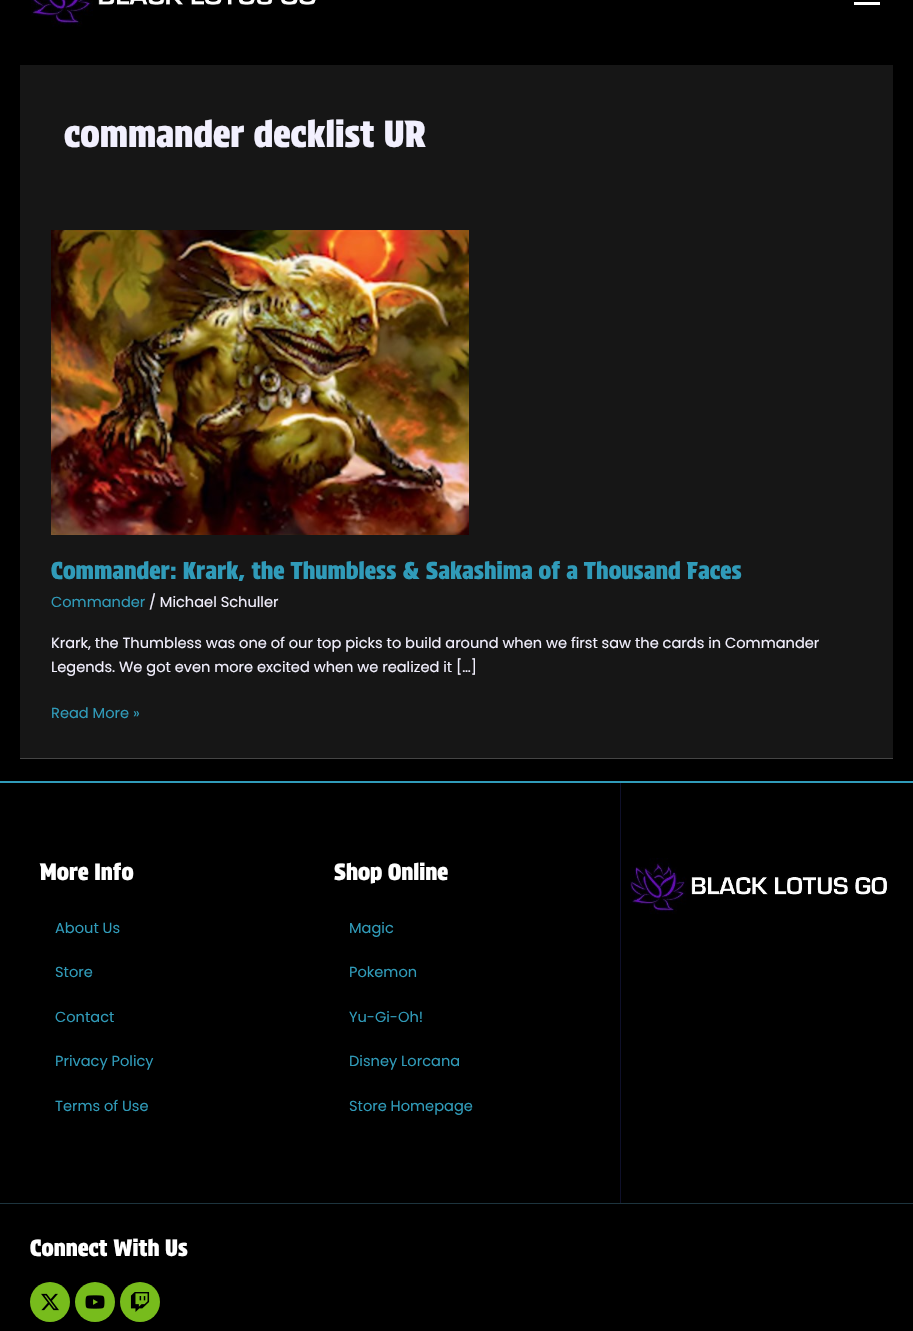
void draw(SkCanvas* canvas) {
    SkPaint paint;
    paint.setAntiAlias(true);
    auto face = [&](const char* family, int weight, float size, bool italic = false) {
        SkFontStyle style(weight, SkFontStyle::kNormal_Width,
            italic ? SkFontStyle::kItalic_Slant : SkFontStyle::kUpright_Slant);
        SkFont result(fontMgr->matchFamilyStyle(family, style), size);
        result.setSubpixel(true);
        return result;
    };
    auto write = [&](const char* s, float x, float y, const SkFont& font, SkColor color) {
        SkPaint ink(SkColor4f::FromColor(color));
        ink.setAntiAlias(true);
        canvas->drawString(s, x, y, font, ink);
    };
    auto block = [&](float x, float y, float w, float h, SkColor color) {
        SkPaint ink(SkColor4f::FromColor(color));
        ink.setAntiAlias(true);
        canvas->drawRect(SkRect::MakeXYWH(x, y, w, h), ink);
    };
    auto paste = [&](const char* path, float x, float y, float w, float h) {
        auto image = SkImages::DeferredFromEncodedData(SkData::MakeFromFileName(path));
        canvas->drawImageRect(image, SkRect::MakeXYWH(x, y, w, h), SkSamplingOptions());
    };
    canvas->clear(SK_ColorBLACK);
    paste("pic1.png", 31, 0, 285, 27);
    block(854, 2, 26, 3, SK_ColorWHITE);
    block(20, 65, 873, 693, SkColorSetRGB(22, 22, 22));
    auto kFont1 = face("Protest Strike", 400, 36.5f);
    write("commander decklist UR", 64, 147, kFont1, SkColorSetRGB(242, 240, 254));
    block(20, 758, 873, 1, SkColorSetRGB(69, 69, 69));
    paste("pic2.png", 51, 230, 418, 305);
    auto kFont2 = face("Protest Strike", 400, 23.7f);
    write("Commander: Krark, the Thumbless & Sakashima of a Thousand Faces", 51, 579, kFont2, SkColorSetRGB(48, 155, 185));
    auto kFont3 = face("Poppins", 400, 14.6f);
    write("Commander", 51, 607, kFont3, SkColorSetRGB(48, 155, 185));
    write("/ Michael Schuller", 149, 607, kFont3, SkColorSetRGB(242, 240, 254));
    write("Krark, the Thumbless was one of our top picks to build around when we first saw the cards in Commander", 51, 648, kFont3, SkColorSetRGB(242, 240, 254));
    write("Legends. We got even more excited when we realized it […]", 51, 672, kFont3, SkColorSetRGB(242, 240, 254));
    write("Read More »", 51, 718, kFont3, SkColorSetRGB(48, 155, 185));
    block(0, 781, 913, 2, SkColorSetRGB(48, 155, 185));
    auto kFont4 = face("Protest Strike", 400, 22.75f);
    write("More Info", 40, 880, kFont4, SK_ColorWHITE);
    write("About Us", 55, 933, kFont3, SkColorSetRGB(48, 155, 185));
    write("Store", 55, 977, kFont3, SkColorSetRGB(48, 155, 185));
    write("Contact", 55, 1022, kFont3, SkColorSetRGB(48, 155, 185));
    write("Privacy Policy", 55, 1066, kFont3, SkColorSetRGB(48, 155, 185));
    write("Terms of Use", 55, 1111, kFont3, SkColorSetRGB(48, 155, 185));
    write("Shop Online", 334, 880, kFont4, SK_ColorWHITE);
    write("Magic", 349, 933, kFont3, SkColorSetRGB(48, 155, 185));
    write("Pokemon", 349, 977, kFont3, SkColorSetRGB(48, 155, 185));
    write("Yu-Gi-Oh!", 349, 1022, kFont3, SkColorSetRGB(48, 155, 185));
    write("Disney Lorcana", 349, 1066, kFont3, SkColorSetRGB(48, 155, 185));
    write("Store Homepage", 349, 1111, kFont3, SkColorSetRGB(48, 155, 185));
    block(620, 783, 1, 420, SkColorSetRGB(15, 16, 42));
    paste("pic3.png", 630, 858, 257, 56);
    block(0, 1203, 913, 1, SkColorSetRGB(29, 52, 62));
    write("Connect With Us", 30, 1256, kFont4, SK_ColorWHITE);
    paint.setColor(SkColorSetRGB(119, 188, 28));
    canvas->drawCircle(50, 1302, 20, paint);
    paste("pic4.png", 41, 1293, 18, 18);
    canvas->drawCircle(95, 1302, 20, paint);
    paste("pic5.png", 85, 1295, 20, 14);
    canvas->drawCircle(140, 1302, 20, paint);
    paste("pic6.png", 130, 1292, 20, 20);
}
